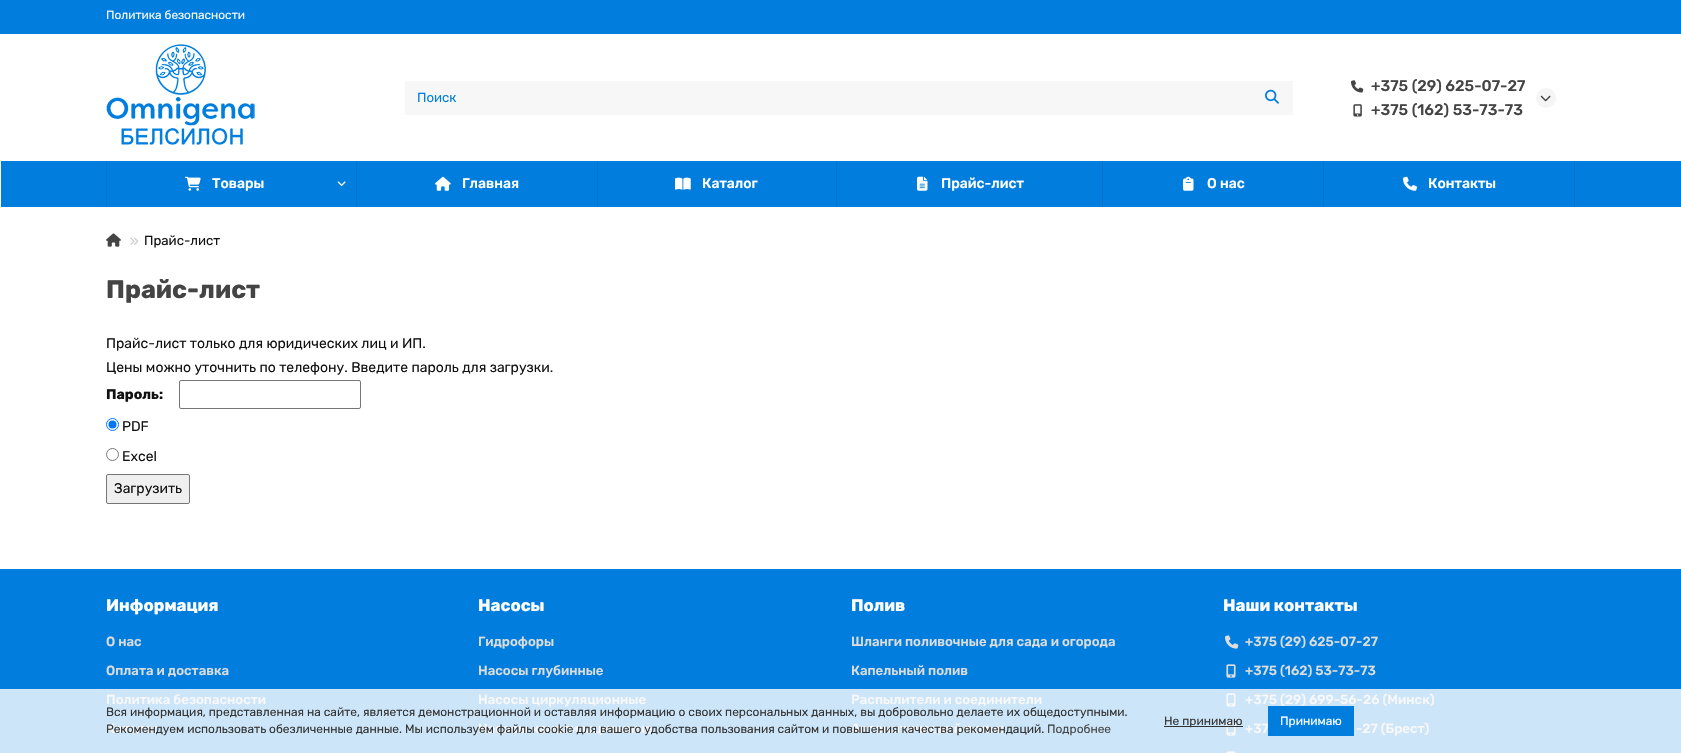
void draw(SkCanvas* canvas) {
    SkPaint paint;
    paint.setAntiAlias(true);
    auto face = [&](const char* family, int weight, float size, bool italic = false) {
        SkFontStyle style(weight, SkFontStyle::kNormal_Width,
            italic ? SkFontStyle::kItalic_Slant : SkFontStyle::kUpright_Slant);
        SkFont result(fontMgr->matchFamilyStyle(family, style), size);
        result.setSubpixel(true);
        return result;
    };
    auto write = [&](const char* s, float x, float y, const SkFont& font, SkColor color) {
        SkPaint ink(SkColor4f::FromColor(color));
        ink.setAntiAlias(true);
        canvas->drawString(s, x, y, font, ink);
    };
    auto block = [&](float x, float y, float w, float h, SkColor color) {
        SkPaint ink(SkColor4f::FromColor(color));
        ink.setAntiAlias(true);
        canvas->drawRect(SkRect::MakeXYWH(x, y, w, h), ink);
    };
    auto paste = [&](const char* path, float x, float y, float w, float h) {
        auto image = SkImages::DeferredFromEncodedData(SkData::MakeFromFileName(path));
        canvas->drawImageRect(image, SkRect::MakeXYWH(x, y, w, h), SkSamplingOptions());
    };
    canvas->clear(SK_ColorWHITE);
    block(0, 0, 1681, 34, SkColorSetRGB(1, 126, 221));
    auto kFont1 = face("Rubik", 400, 11.9f);
    write("Политика безопасности", 106, 19, kFont1, SkColorSetRGB(248, 248, 248));
    paste("pic1.png", 106, 44, 149, 101);
    block(405, 81, 888, 34, SkColorSetRGB(247, 247, 247));
    auto kFont2 = face("Rubik", 400, 13.25f);
    write("Поиск", 417, 102, kFont2, SkColorSetRGB(1, 126, 221));
    paste("pic2.png", 1265, 89, 14, 15);
    paste("pic3.png", 1351, 80, 13, 13);
    auto kFont3 = face("Rubik", 500, 15.4f);
    write("+375 (29) 625-07-27", 1371, 91, kFont3, SkColorSetRGB(68, 68, 68));
    paint.setColor(SkColorSetRGB(245, 245, 245));
    canvas->drawCircle(1546, 98, 10, paint);
    paste("pic4.png", 1540, 95, 11, 7);
    paste("pic5.png", 1353, 104, 9, 13);
    write("+375 (162) 53-73-73", 1371, 115, kFont3, SkColorSetRGB(68, 68, 68));
    block(1, 161, 1680, 46, SkColorSetRGB(1, 126, 221));
    block(106, 161, 1, 46, SkColorSetRGB(1, 116, 203));
    paste("pic6.png", 185, 176, 16, 15);
    auto kFont4 = face("Rubik", 500, 14);
    write("Товары", 212, 188, kFont4, SK_ColorWHITE);
    paste("pic7.png", 337, 181, 9, 5);
    block(356, 161, 1, 46, SkColorSetRGB(1, 116, 203));
    paste("pic8.png", 435, 176, 16, 15);
    write("Главная", 462, 188, kFont4, SK_ColorWHITE);
    block(597, 161, 1, 46, SkColorSetRGB(1, 116, 203));
    paste("pic9.png", 675, 177, 16, 13);
    write("Каталог", 702, 188, kFont4, SK_ColorWHITE);
    block(836, 161, 1, 46, SkColorSetRGB(1, 116, 203));
    paste("pic10.png", 917, 176, 11, 15);
    write("Прайс-лист", 941, 188, kFont4, SK_ColorWHITE);
    block(1102, 161, 1, 46, SkColorSetRGB(1, 116, 203));
    paste("pic11.png", 1183, 176, 11, 15);
    write("О нас", 1207, 188, kFont4, SK_ColorWHITE);
    block(1323, 161, 1, 46, SkColorSetRGB(1, 116, 203));
    block(1574, 161, 1, 46, SkColorSetRGB(1, 116, 203));
    paste("pic12.png", 1403, 176, 14, 15);
    write("Контакты", 1428, 188, kFont4, SK_ColorWHITE);
    paste("pic13.png", 106, 233, 15, 14);
    paste("pic14.png", 130, 237, 9, 8);
    write("Прайс-лист", 144, 245, kFont2, SkColorSetRGB(17, 17, 17));
    auto kFont5 = face("Rubik", 700, 25.25f);
    write("Прайс-лист", 106, 298, kFont5, SkColorSetRGB(68, 68, 68));
    auto kFont6 = face("Rubik", 400, 14);
    write("Прайс-лист только для юридических лиц и ИП.", 106, 348, kFont6, SkColorSetRGB(17, 17, 17));
    write("Цены можно уточнить по телефону. Введите пароль для загрузки.", 106, 372, kFont6, SkColorSetRGB(17, 17, 17));
    auto kFont7 = face("Rubik", 700, 14);
    write("Пароль:", 106, 399, kFont7, SkColorSetRGB(17, 17, 17));
    paint.setStyle(SkPaint::kStroke_Style);
    paint.setStrokeWidth(1);
    paint.setColor(SkColorSetRGB(118, 118, 118));
    canvas->drawRoundRect(SkRect::MakeXYWH(179.5f, 380.5f, 181, 28), 1.5f, 1.5f, paint);
    paint.setColor(SkColorSetRGB(0, 117, 255));
    canvas->drawCircle(112.5f, 424.5f, 6, paint);
    paint.setStyle(SkPaint::kFill_Style);
    canvas->drawCircle(112.5f, 424.5f, 4, paint);
    write("PDF", 122, 431, kFont6, SkColorSetRGB(17, 17, 17));
    paint.setStyle(SkPaint::kStroke_Style);
    paint.setColor(SkColorSetRGB(118, 118, 118));
    canvas->drawCircle(112.5f, 454.5f, 6, paint);
    write("Excel", 122, 461, kFont6, SkColorSetRGB(17, 17, 17));
    paint.setStyle(SkPaint::kFill_Style);
    paint.setColor(SkColorSetRGB(239, 239, 239));
    canvas->drawRoundRect(SkRect::MakeXYWH(106.5f, 474.5f, 83, 29), 1.5f, 1.5f, paint);
    paint.setStyle(SkPaint::kStroke_Style);
    paint.setColor(SkColorSetRGB(118, 118, 118));
    canvas->drawRoundRect(SkRect::MakeXYWH(106.5f, 474.5f, 83, 29), 1.5f, 1.5f, paint);
    write("Загрузить", 114, 493, kFont6, SkColorSetRGB(17, 17, 17));
    block(0, 569, 1681, 120, SkColorSetRGB(1, 126, 221));
    block(0, 689, 1681, 64, SkColorSetRGB(204, 229, 248));
    auto kFont8 = face("Rubik", 700, 16.75f);
    write("Информация", 106, 611, kFont8, SK_ColorWHITE);
    auto kFont9 = face("Rubik", 500, 13.25f);
    write("О нас", 106, 646, kFont9, SkColorSetRGB(221, 221, 221));
    write("Оплата и доставка", 106, 675, kFont9, SkColorSetRGB(221, 221, 221));
    write("Политика безопасности", 106, 704, kFont9, SkColorSetRGB(248, 248, 248));
    write("Каталог", 106, 733, kFont9, SkColorSetRGB(248, 248, 248));
    write("Насосы", 478, 611, kFont8, SK_ColorWHITE);
    write("Гидрофоры", 478, 646, kFont9, SkColorSetRGB(221, 221, 221));
    write("Насосы глубинные", 478, 675, kFont9, SkColorSetRGB(221, 221, 221));
    write("Насосы циркуляционные", 478, 704, kFont9, SkColorSetRGB(248, 248, 248));
    write("Насосы канализационные", 478, 733, kFont9, SkColorSetRGB(248, 248, 248));
    write("Полив", 851, 611, kFont8, SK_ColorWHITE);
    write("Шланги поливочные для сада и огорода", 851, 646, kFont9, SkColorSetRGB(221, 221, 221));
    write("Капельный полив", 851, 675, kFont9, SkColorSetRGB(221, 221, 221));
    write("Распылители и соединители", 851, 704, kFont9, SkColorSetRGB(248, 248, 248));
    write("Автоматический полив", 851, 733, kFont9, SkColorSetRGB(248, 248, 248));
    write("Наши контакты", 1223, 611, kFont8, SK_ColorWHITE);
    paste("pic15.png", 1225, 635, 14, 14);
    write("+375 (29) 625-07-27", 1245, 646, kFont9, SkColorSetRGB(221, 221, 221));
    paste("pic16.png", 1226, 664, 10, 14);
    write("+375 (162) 53-73-73", 1245, 675, kFont9, SkColorSetRGB(221, 221, 221));
    paste("pic17.png", 1226, 693, 10, 14);
    write("+375 (29) 699-56-26 (Минск)", 1245, 704, kFont9, SkColorSetRGB(248, 248, 248));
    paste("pic17.png", 1226, 722, 10, 14);
    write("+37", 1245, 733, kFont9, SkColorSetRGB(248, 248, 248));
    write("-27 (Брест)", 1356, 733, kFont9, SkColorSetRGB(248, 248, 248));
    paste("pic18.png", 1226, 751, 10, 2);
    auto kFont10 = face("Rubik", 400, 11.97f);
    write("Вся информация, представленная на сайте, является демонстрационной и оставляя информацию о своих персональных данных, вы добровольно делаете их общедоступными.", 106, 716, kFont10, SkColorSetRGB(51, 51, 51));
    write("Рекомендуем использовать обезличенные данные. Мы используем файлы cookie для вашего удобства пользования сайтом и повышения качества рекомендаций.", 106, 733, kFont10, SkColorSetRGB(51, 51, 51));
    write("Подробнее", 1047, 733, kFont10, SkColorSetRGB(68, 68, 68));
    block(1164, 726, 79, 1, SkColorSetRGB(51, 51, 51));
    auto kFont11 = face("Rubik", 400, 12);
    write("Не принимаю", 1164, 725, kFont11, SkColorSetRGB(51, 51, 51));
    block(1268, 706, 86, 30, SkColorSetRGB(1, 126, 221));
    write("Принимаю", 1280, 725, kFont11, SK_ColorWHITE);
}
